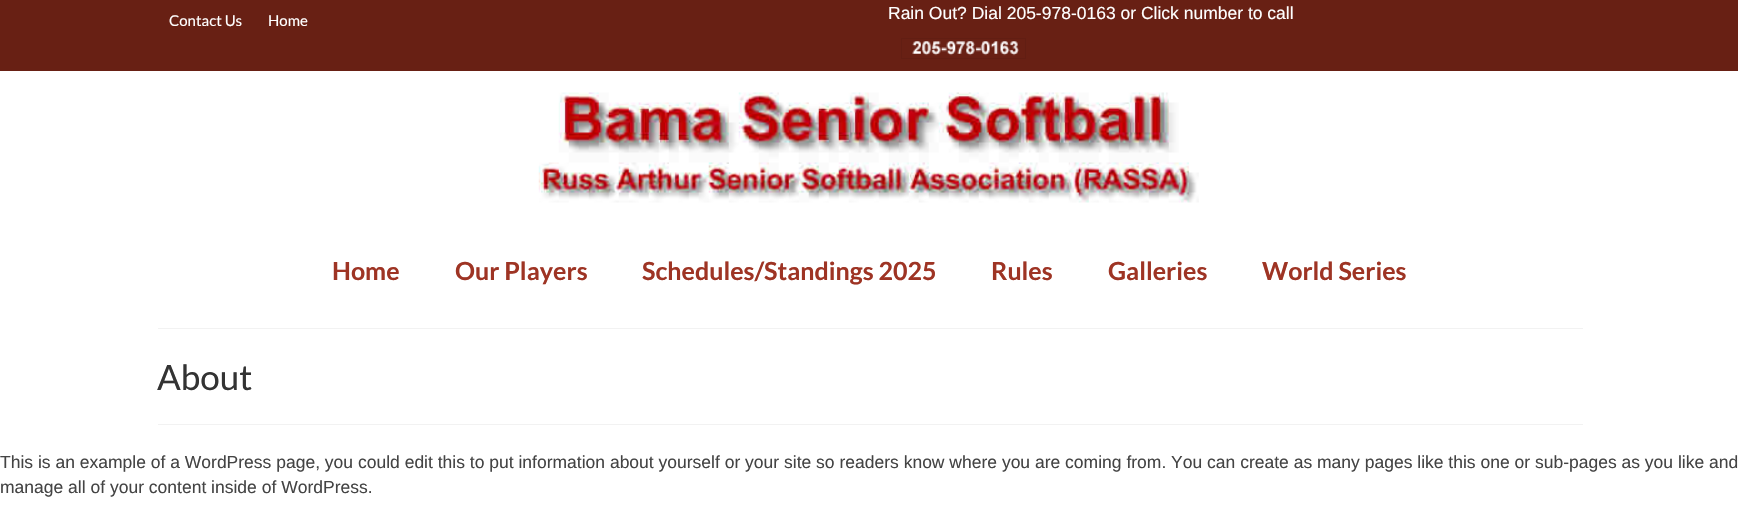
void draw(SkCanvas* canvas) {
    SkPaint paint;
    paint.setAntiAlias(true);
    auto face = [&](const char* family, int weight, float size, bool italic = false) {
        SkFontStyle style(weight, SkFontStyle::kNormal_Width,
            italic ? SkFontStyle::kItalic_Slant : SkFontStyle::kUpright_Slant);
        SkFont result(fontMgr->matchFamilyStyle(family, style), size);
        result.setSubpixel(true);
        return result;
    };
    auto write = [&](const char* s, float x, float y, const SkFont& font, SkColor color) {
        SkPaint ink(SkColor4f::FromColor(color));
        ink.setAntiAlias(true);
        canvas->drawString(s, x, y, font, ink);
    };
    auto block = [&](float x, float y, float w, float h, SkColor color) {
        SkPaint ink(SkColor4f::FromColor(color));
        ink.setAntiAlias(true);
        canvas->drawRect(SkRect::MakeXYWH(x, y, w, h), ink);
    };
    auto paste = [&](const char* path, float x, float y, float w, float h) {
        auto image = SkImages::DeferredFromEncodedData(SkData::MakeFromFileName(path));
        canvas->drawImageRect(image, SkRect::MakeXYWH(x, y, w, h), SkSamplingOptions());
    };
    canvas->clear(SK_ColorWHITE);
    block(0, 0, 1738, 71, SkColorSetRGB(104, 32, 20));
    auto kFont1 = face("Lato", 400, 15);
    write("Contact Us", 169, 26, kFont1, SK_ColorWHITE);
    write("Home", 268, 26, kFont1, SK_ColorWHITE);
    auto kFont2 = face("Liberation Sans", 400, 17.5f);
    write("Rain Out? Dial 205-978-0163 or Click number to call", 888, 19, kFont2, SK_ColorWHITE);
    paint.setStyle(SkPaint::kStroke_Style);
    paint.setStrokeWidth(1);
    paint.setColor(SkColorSetRGB(98, 30, 19));
    canvas->drawRect(SkRect::MakeXYWH(901.5f, 38.5f, 124, 20), paint);
    paste("pic1.png", 912, 41, 107, 15);
    paste("pic2.png", 538, 92, 661, 111);
    auto kFont3 = face("Lato", 700, 25);
    write("Home", 332, 280, kFont3, SkColorSetRGB(158, 52, 36));
    write("Our Players", 455, 280, kFont3, SkColorSetRGB(158, 52, 36));
    write("Schedules/Standings 2025", 642, 280, kFont3, SkColorSetRGB(158, 52, 36));
    write("Rules", 991, 280, kFont3, SkColorSetRGB(158, 52, 36));
    write("Galleries", 1108, 280, kFont3, SkColorSetRGB(158, 52, 36));
    write("World Series", 1262, 280, kFont3, SkColorSetRGB(158, 52, 36));
    block(158, 328, 1425, 1, SkColorSetRGB(242, 242, 242));
    block(158, 424, 1425, 1, SkColorSetRGB(242, 242, 242));
    auto kFont4 = face("Lato", 400, 35);
    write("About", 157, 390, kFont4, SkColorSetRGB(51, 51, 51));
    write("This is an example of a WordPress page, you could edit this to put information about yourself or your site so readers know where you are coming from. You can create as many pages like this one or sub-pages as you like and", 0, 468, kFont2, SkColorSetRGB(68, 68, 68));
    write("manage all of your content inside of WordPress.", 0, 493, kFont2, SkColorSetRGB(68, 68, 68));
}
